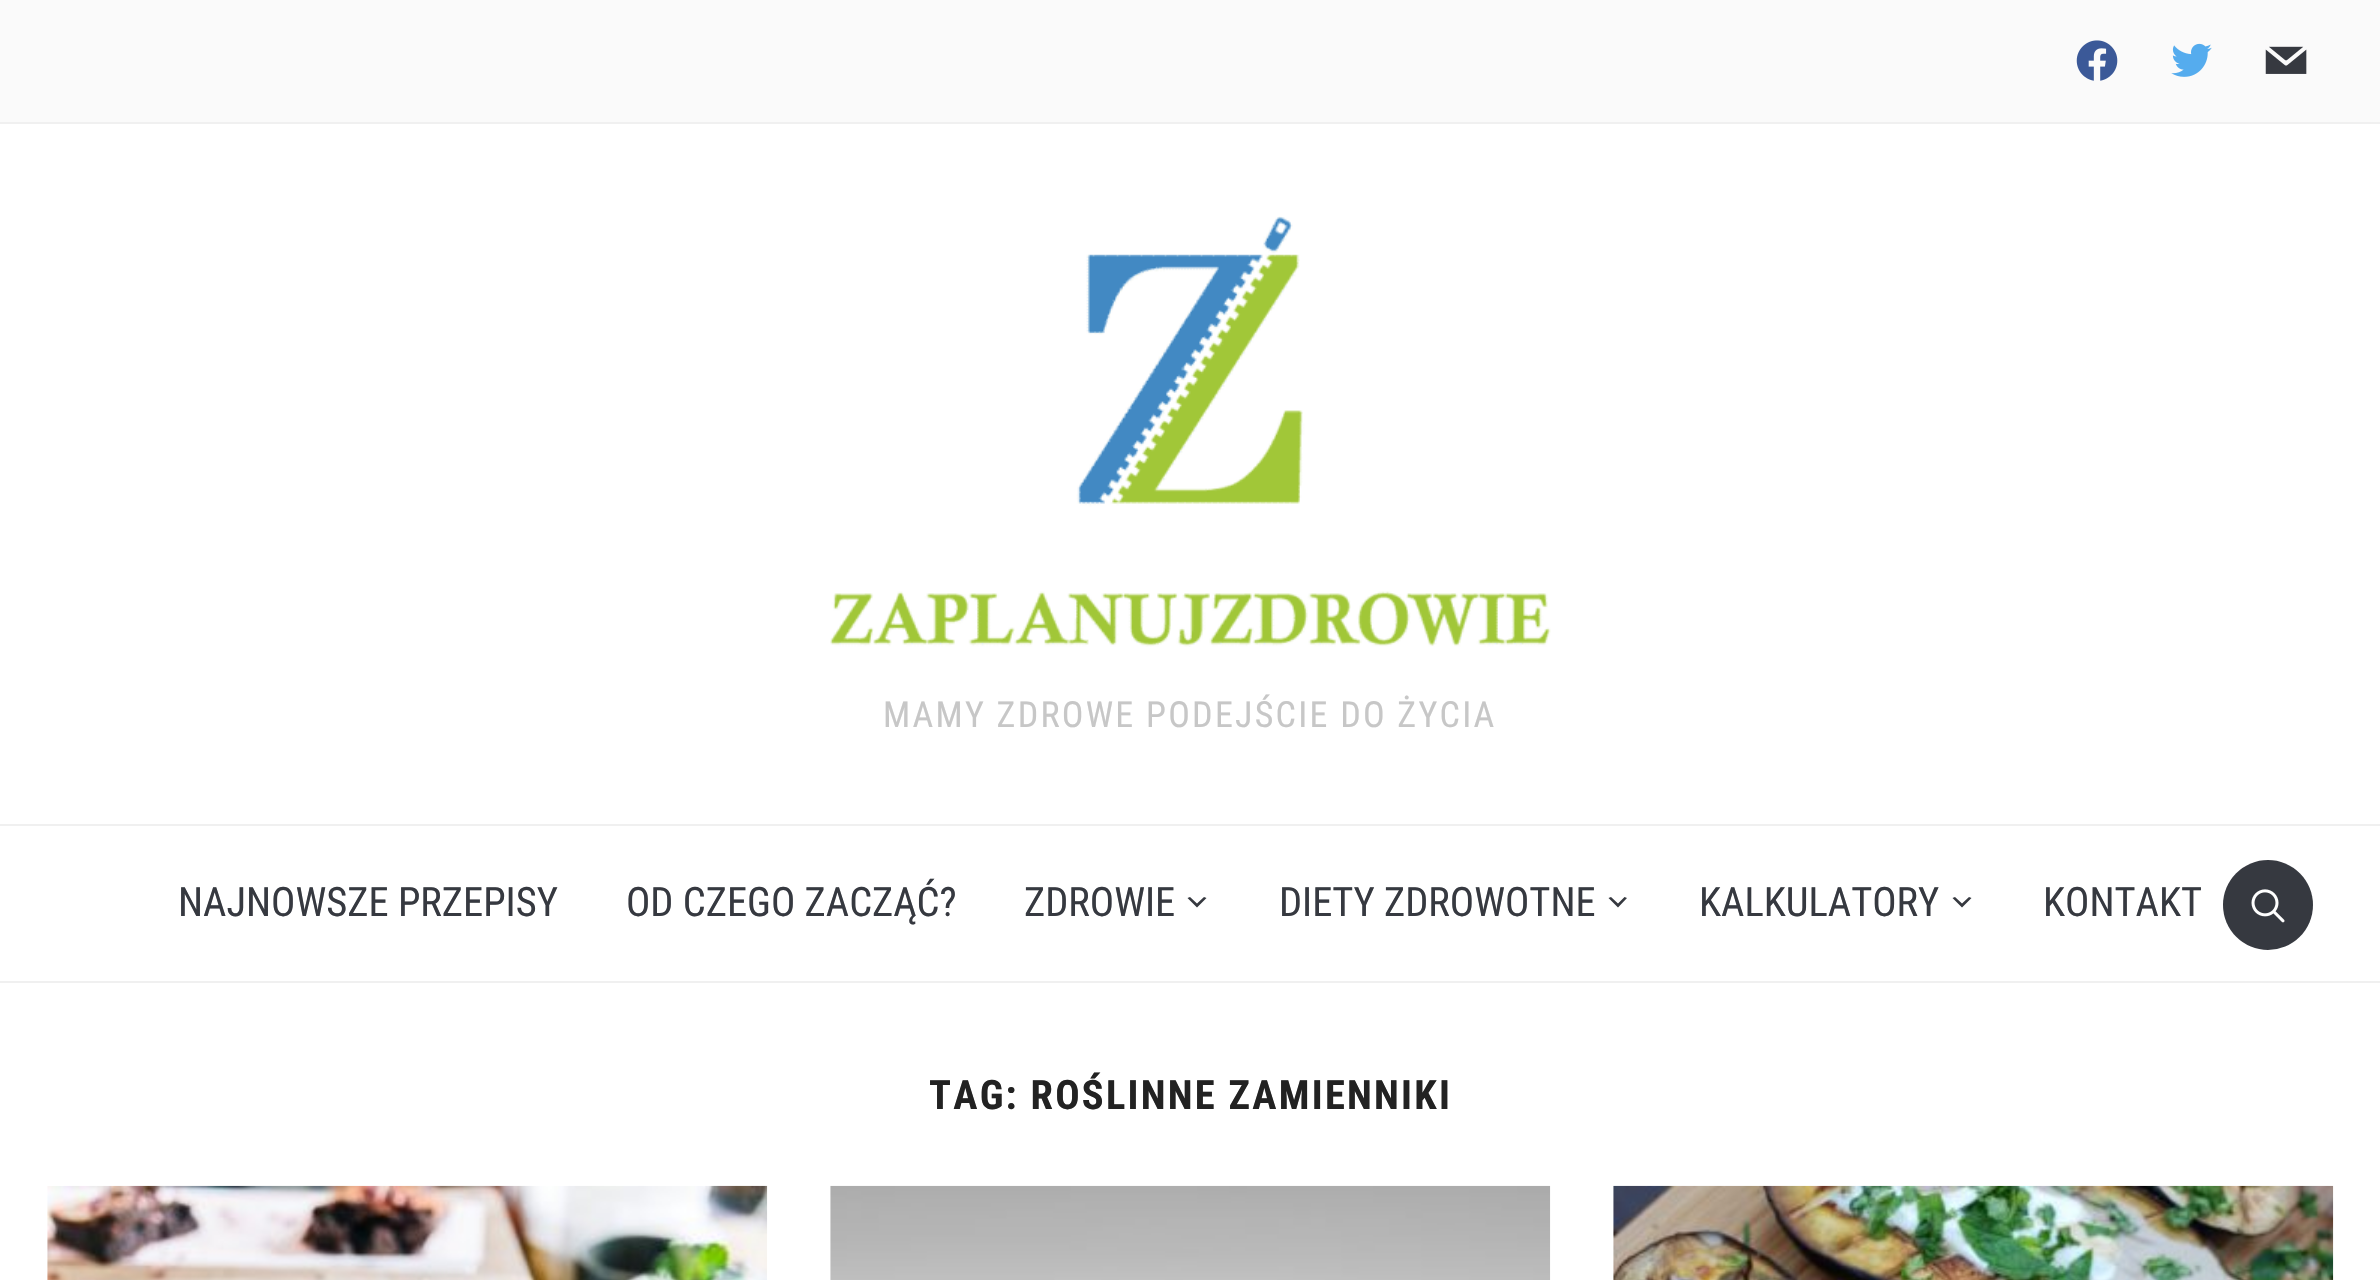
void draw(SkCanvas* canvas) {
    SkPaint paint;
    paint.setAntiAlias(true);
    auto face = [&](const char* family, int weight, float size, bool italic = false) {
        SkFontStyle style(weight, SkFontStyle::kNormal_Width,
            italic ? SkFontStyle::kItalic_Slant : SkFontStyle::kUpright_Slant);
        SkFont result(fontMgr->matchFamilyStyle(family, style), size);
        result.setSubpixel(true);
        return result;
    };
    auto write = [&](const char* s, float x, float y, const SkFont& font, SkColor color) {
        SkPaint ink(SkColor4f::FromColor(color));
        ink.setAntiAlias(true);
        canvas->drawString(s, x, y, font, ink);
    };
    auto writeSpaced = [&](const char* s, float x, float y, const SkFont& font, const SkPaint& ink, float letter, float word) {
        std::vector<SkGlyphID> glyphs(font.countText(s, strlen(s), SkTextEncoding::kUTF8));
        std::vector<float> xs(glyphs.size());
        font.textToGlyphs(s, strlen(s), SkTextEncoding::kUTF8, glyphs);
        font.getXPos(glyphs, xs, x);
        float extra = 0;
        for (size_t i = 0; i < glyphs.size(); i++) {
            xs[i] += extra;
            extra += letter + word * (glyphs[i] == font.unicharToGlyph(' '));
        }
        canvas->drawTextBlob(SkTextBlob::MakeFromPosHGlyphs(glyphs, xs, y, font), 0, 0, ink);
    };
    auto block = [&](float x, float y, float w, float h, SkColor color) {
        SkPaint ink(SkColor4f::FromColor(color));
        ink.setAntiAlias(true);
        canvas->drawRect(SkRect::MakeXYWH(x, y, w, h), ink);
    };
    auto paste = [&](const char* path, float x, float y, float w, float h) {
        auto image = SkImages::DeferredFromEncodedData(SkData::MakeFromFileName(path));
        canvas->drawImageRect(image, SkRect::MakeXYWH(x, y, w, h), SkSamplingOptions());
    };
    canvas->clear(SK_ColorWHITE);
    block(0, 0, 2380, 122, SkColorSetRGB(250, 250, 250));
    block(0, 122, 2380, 2, SkColorSetRGB(240, 240, 240));
    paste("pic1.png", 2076, 40, 42, 41);
    paste("pic2.png", 2171, 43, 41, 34);
    paste("pic3.png", 2265, 46, 42, 28);
    paste("pic4.png", 830, 216, 721, 431);
    auto kFont1 = face("Roboto Condensed", 400, 36);
    paint.setColor(SkColorSetRGB(199, 199, 199));
    writeSpaced("MAMY ZDROWE PODEJŚCIE DO ŻYCIA", 883, 727, kFont1, paint, 2.25f, 0);
    block(0, 824, 2380, 2, SkColorSetRGB(240, 240, 240));
    block(0, 981, 2380, 2, SkColorSetRGB(240, 240, 240));
    auto kFont2 = face("Roboto Condensed", 400, 40.5f);
    write("NAJNOWSZE PRZEPISY", 178, 916, kFont2, SkColorSetRGB(54, 57, 64));
    write("OD CZEGO ZACZĄĆ?", 626, 916, kFont2, SkColorSetRGB(54, 57, 64));
    write("ZDROWIE", 1024, 916, kFont2, SkColorSetRGB(54, 57, 64));
    paint.setColor(SkColorSetRGB(54, 57, 64));
    canvas->drawPath(SkPathBuilder().moveTo(1190, 897).lineTo(1197, 903.5f).lineTo(1204, 897).lineTo(1206.5f, 898).lineTo(1197, 907.5f).lineTo(1187.5f, 898).close().detach(), paint);
    write("DIETY ZDROWOTNE", 1279, 916, kFont2, SkColorSetRGB(54, 57, 64));
    canvas->drawPath(SkPathBuilder().moveTo(1611, 897).lineTo(1618, 903.5f).lineTo(1624.5f, 897).lineTo(1627, 898).lineTo(1618, 907.5f).lineTo(1608.5f, 898).close().detach(), paint);
    write("KALKULATORY", 1699, 916, kFont2, SkColorSetRGB(54, 57, 64));
    canvas->drawPath(SkPathBuilder().moveTo(1955, 897).lineTo(1962, 903.5f).lineTo(1969, 897).lineTo(1971.5f, 898).lineTo(1962, 907.5f).lineTo(1952.5f, 898).close().detach(), paint);
    write("KONTAKT", 2043, 916, kFont2, SkColorSetRGB(54, 57, 64));
    canvas->drawCircle(2268, 905, 45, paint);
    paste("pic5.png", 2251, 889, 34, 34);
    auto kFont3 = face("Roboto Condensed", 700, 40.5f);
    paint.setColor(SkColorSetRGB(34, 34, 34));
    writeSpaced("TAG: ROŚLINNE ZAMIENNIKI", 929, 1109, kFont3, paint, 2.25f, 0);
    paste("pic6.png", 47, 1185, 721, 95);
    paste("pic7.png", 830, 1185, 721, 95);
    paste("pic8.png", 1613, 1185, 721, 95);
}
